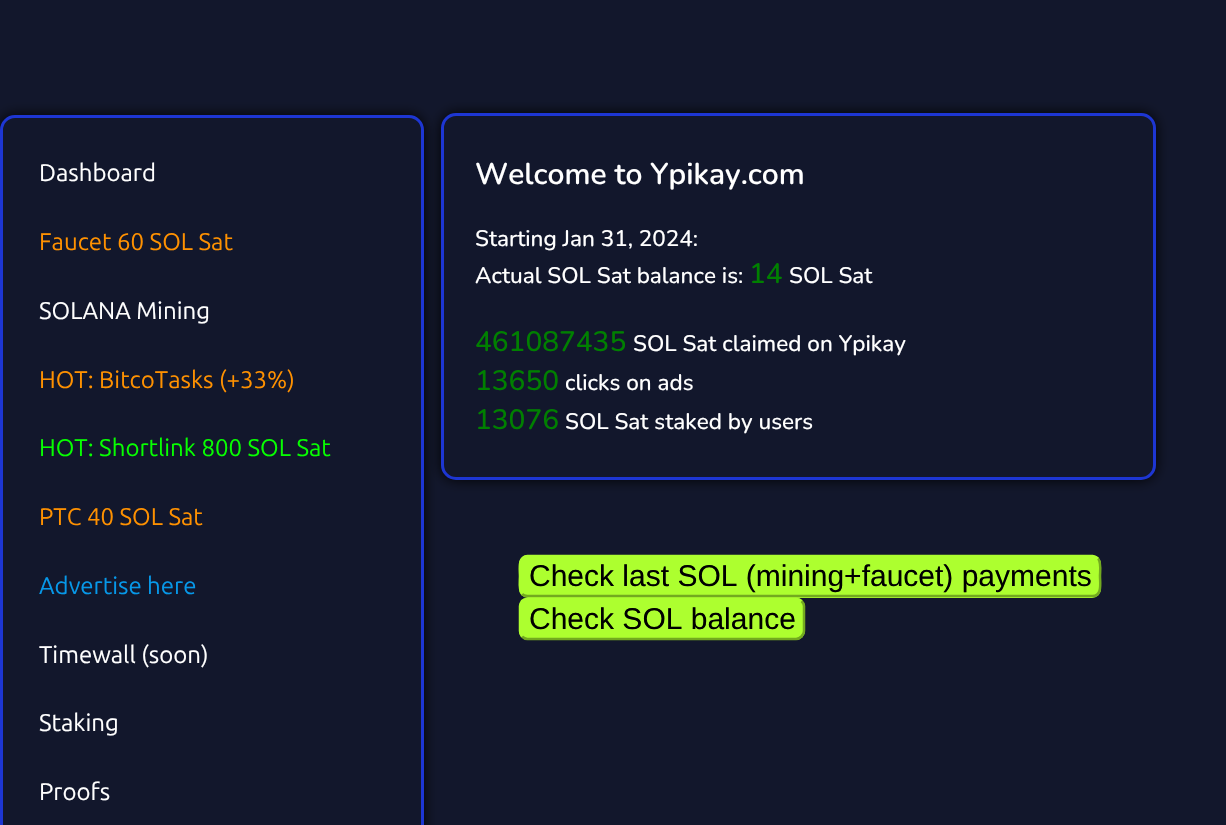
void draw(SkCanvas* canvas) {
    SkPaint paint;
    paint.setAntiAlias(true);
    auto face = [&](const char* family, int weight, float size, bool italic = false) {
        SkFontStyle style(weight, SkFontStyle::kNormal_Width,
            italic ? SkFontStyle::kItalic_Slant : SkFontStyle::kUpright_Slant);
        SkFont result(fontMgr->matchFamilyStyle(family, style), size);
        result.setSubpixel(true);
        return result;
    };
    auto write = [&](const char* s, float x, float y, const SkFont& font, SkColor color) {
        SkPaint ink(SkColor4f::FromColor(color));
        ink.setAntiAlias(true);
        canvas->drawString(s, x, y, font, ink);
    };
    auto card = [&](float x, float y, float w, float h, float radius, SkColor color) {
        SkPaint ink(SkColor4f::FromColor(color));
        ink.setAntiAlias(true);
        canvas->drawRoundRect(SkRect::MakeXYWH(x, y, w, h), radius, radius, ink);
    };
    canvas->clear(SkColorSetRGB(18, 23, 44));
    paint.setColor(SkColorSetRGB(1, 1, 1));
    paint.setMaskFilter(SkMaskFilter::MakeBlur(kNormal_SkBlurStyle, 7));
    canvas->drawRoundRect(SkRect::MakeXYWH(441, 113, 715, 367), 15, 15, paint);
    paint.setMaskFilter(nullptr);
    paint.setColor(SkColorSetRGB(18, 23, 44));
    canvas->drawRoundRect(SkRect::MakeXYWH(442.5f, 114.5f, 712, 364), 13.5f, 13.5f, paint);
    paint.setStyle(SkPaint::kStroke_Style);
    paint.setStrokeWidth(3);
    paint.setColor(SkColorSetRGB(29, 54, 211));
    canvas->drawRoundRect(SkRect::MakeXYWH(442.5f, 114.5f, 712, 364), 13.5f, 13.5f, paint);
    paint.setStyle(SkPaint::kFill_Style);
    paint.setColor(SkColorSetRGB(1, 1, 1));
    paint.setMaskFilter(SkMaskFilter::MakeBlur(kNormal_SkBlurStyle, 7));
    canvas->drawRoundRect(SkRect::MakeXYWH(0, 115, 424, 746), 15, 15, paint);
    paint.setMaskFilter(nullptr);
    paint.setColor(SkColorSetRGB(18, 23, 44));
    canvas->drawRoundRect(SkRect::MakeXYWH(1.5f, 116.5f, 421, 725), 13.5f, 13.5f, paint);
    paint.setStyle(SkPaint::kStroke_Style);
    paint.setColor(SkColorSetRGB(29, 54, 211));
    canvas->drawRoundRect(SkRect::MakeXYWH(1.5f, 116.5f, 421, 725), 13.5f, 13.5f, paint);
    auto kFont1 = face("Ubuntu", 400, 24);
    write("Dashboard", 39, 181, kFont1, SK_ColorWHITE);
    write("Faucet 60 SOL Sat", 39, 250, kFont1, SkColorSetRGB(255, 145, 0));
    write("SOLANA Mining", 39, 319, kFont1, SK_ColorWHITE);
    write("HOT: BitcoTasks (+33%)", 39, 388, kFont1, SkColorSetRGB(255, 145, 0));
    write("HOT: Shortlink 800 SOL Sat", 39, 456, kFont1, SkColorSetRGB(6, 255, 0));
    write("PTC 40 SOL Sat", 39, 525, kFont1, SkColorSetRGB(255, 145, 0));
    write("Advertise here", 39, 594, kFont1, SkColorSetRGB(6, 152, 233));
    write("Timewall (soon)", 39, 663, kFont1, SK_ColorWHITE);
    write("Staking", 39, 731, kFont1, SK_ColorWHITE);
    write("Proofs", 39, 800, kFont1, SK_ColorWHITE);
    auto kFont2 = face("Nunito", 600, 30);
    write("Welcome to Ypikay.com", 475, 184, kFont2, SK_ColorWHITE);
    auto kFont3 = face("Nunito", 500, 22.5f);
    write("Starting Jan 31, 2024:", 475, 246, kFont3, SK_ColorWHITE);
    write("Actual SOL Sat balance is:", 475, 283, kFont3, SK_ColorWHITE);
    auto kFont4 = face("Nunito", 500, 28);
    write("14", 749, 283, kFont4, SkColorSetRGB(0, 128, 0));
    write("SOL Sat", 789, 283, kFont3, SK_ColorWHITE);
    write("461087435", 475, 351, kFont4, SkColorSetRGB(0, 128, 0));
    write("SOL Sat claimed on Ypikay", 633, 351, kFont3, SK_ColorWHITE);
    write("13650", 475, 390, kFont4, SkColorSetRGB(0, 128, 0));
    write("clicks on ads", 565, 390, kFont3, SK_ColorWHITE);
    write("13076", 475, 429, kFont4, SkColorSetRGB(0, 128, 0));
    write("SOL Sat staked by users", 565, 429, kFont3, SK_ColorWHITE);
    card(519, 555, 582, 43, 9, SkColorSetRGB(173, 255, 47));
    paint.setStrokeWidth(2.5f);
    paint.setColor(SkColorSetRGB(115, 170, 31));
    canvas->drawPath(SkPathBuilder().moveTo(1098, 558.5f).cubicTo(1101.5f, 562.5f, 1100, 571.5f, 1100, 576).cubicTo(1100, 582.5f, 1102.5f, 596, 1092.5f, 596).lineTo(527.5f, 596).cubicTo(525.5f, 596, 523.5f, 595.5f, 522, 594).detach(), paint);
    paint.setColor(SkColorSetRGB(173, 255, 47));
    canvas->drawPath(SkPathBuilder().moveTo(522, 594).cubicTo(518.5f, 590, 520, 581, 520, 576).cubicTo(520, 570, 517.5f, 556.5f, 527.5f, 556).lineTo(1092.5f, 556).cubicTo(1094.5f, 556.5f, 1096.5f, 557, 1098, 558.5f).detach(), paint);
    auto kFont5 = face("Liberation Sans", 400, 30);
    write("Check last SOL (mining+faucet) payments", 529, 586, kFont5, SK_ColorBLACK);
    card(519, 598, 286, 42, 9, SkColorSetRGB(173, 255, 47));
    paint.setColor(SkColorSetRGB(115, 170, 31));
    canvas->drawPath(SkPathBuilder().moveTo(801.5f, 601).cubicTo(803, 602.5f, 804, 604.5f, 804, 606).lineTo(804, 631).cubicTo(804, 633, 803, 635, 801.5f, 636.5f).cubicTo(800, 638, 798, 639, 796, 639).lineTo(527.5f, 639).cubicTo(525.5f, 639, 523.5f, 638, 522, 636.5f).detach(), paint);
    paint.setColor(SkColorSetRGB(173, 255, 47));
    canvas->drawPath(SkPathBuilder().moveTo(522, 636.5f).cubicTo(521, 635, 520, 633, 520, 631).lineTo(520, 606).cubicTo(520, 604.5f, 521, 602.5f, 522, 601).cubicTo(523.5f, 599.5f, 525.5f, 599, 527.5f, 599).lineTo(796, 599).cubicTo(798, 599, 800, 599.5f, 801.5f, 601).detach(), paint);
    write("Check SOL balance", 529, 629, kFont5, SK_ColorBLACK);
}
